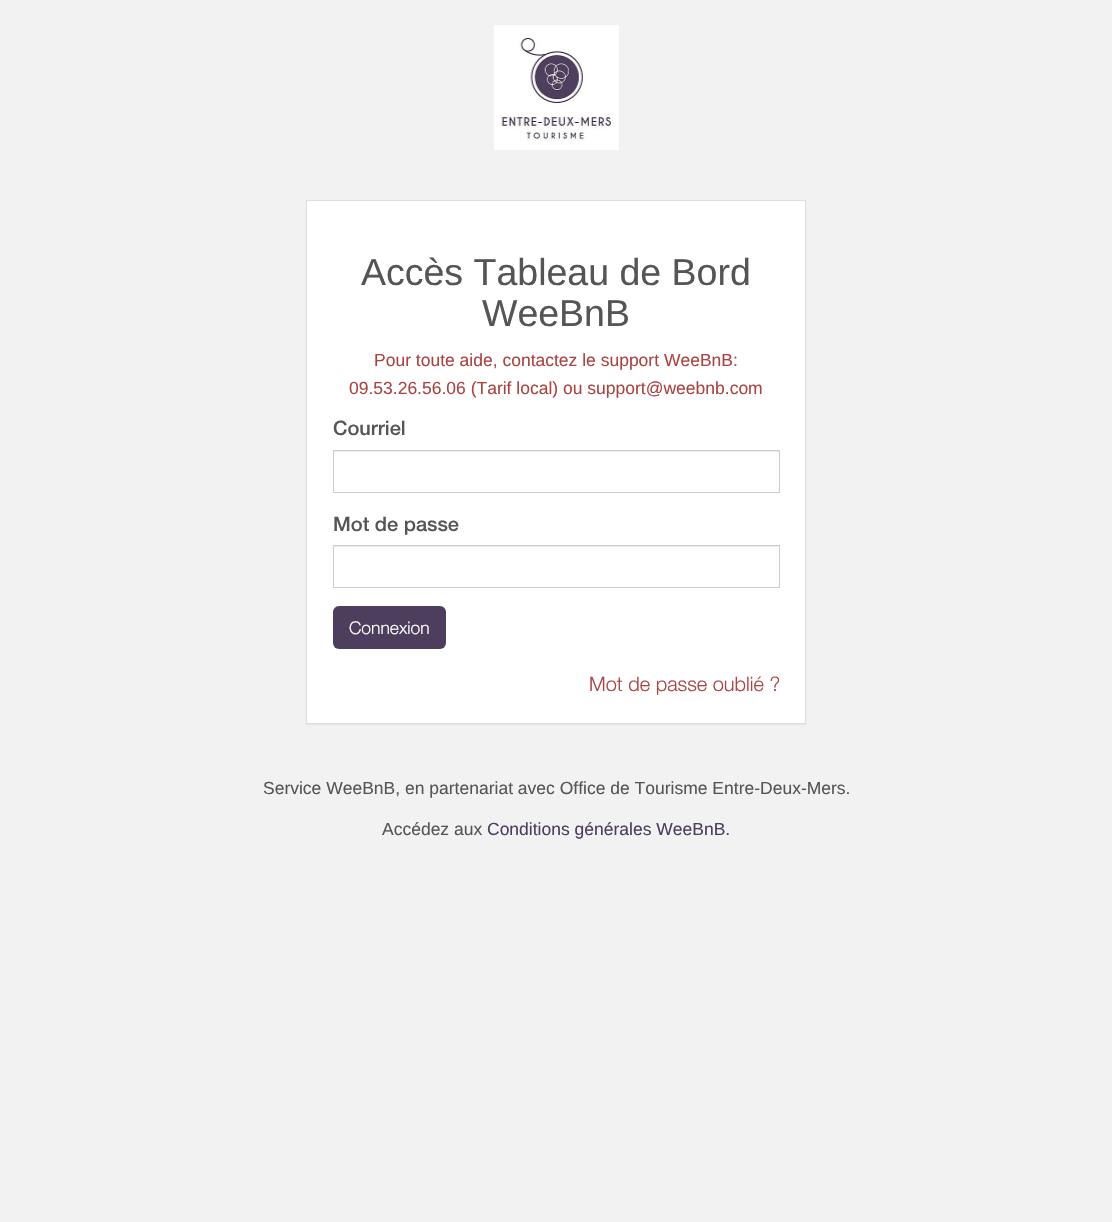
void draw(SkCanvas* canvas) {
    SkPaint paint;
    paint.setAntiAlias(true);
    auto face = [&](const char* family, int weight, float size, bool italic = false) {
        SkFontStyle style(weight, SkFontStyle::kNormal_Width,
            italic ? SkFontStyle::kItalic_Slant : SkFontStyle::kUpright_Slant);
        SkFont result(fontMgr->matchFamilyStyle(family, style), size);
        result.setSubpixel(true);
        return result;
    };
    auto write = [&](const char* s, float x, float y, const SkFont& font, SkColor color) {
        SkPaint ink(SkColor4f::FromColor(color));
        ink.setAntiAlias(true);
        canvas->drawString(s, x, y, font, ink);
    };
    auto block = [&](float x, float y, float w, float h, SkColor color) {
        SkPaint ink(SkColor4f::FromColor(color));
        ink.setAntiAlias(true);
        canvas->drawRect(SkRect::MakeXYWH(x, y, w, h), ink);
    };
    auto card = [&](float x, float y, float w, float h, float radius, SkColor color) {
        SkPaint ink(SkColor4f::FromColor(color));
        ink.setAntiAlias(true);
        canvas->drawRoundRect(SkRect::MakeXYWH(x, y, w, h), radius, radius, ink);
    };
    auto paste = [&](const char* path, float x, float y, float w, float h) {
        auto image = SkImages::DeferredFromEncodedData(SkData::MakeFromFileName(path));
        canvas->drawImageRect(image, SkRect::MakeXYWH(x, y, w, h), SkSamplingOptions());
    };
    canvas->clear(SkColorSetRGB(242, 242, 242));
    paste("pic1.png", 494, 25, 125, 125);
    paint.setColor(SkColorSetARGB(13, 0, 0, 0));
    paint.setMaskFilter(SkMaskFilter::MakeBlur(kNormal_SkBlurStyle, 0.5f));
    canvas->drawRect(SkRect::MakeXYWH(306, 201, 500, 524), paint);
    paint.setMaskFilter(nullptr);
    paint.setColor(SK_ColorWHITE);
    canvas->drawRect(SkRect::MakeXYWH(306.5f, 200.5f, 499, 523), paint);
    paint.setStyle(SkPaint::kStroke_Style);
    paint.setStrokeWidth(1);
    paint.setColor(SkColorSetRGB(221, 221, 221));
    canvas->drawRect(SkRect::MakeXYWH(306.5f, 200.5f, 499, 523), paint);
    auto kFont1 = face("Liberation Sans", 400, 37.5f);
    write("Accès Tableau de Bord", 361, 285, kFont1, SkColorSetRGB(85, 85, 85));
    write("WeeBnB", 482, 326, kFont1, SkColorSetRGB(85, 85, 85));
    auto kFont2 = face("Liberation Sans", 400, 17.5f);
    write("Pour toute aide, contactez le support WeeBnB:", 374, 366, kFont2, SkColorSetRGB(169, 68, 66));
    write("09.53.26.56.06 (Tarif local) ou support@weebnb.com", 349, 394, kFont2, SkColorSetRGB(169, 68, 66));
    auto kFont3 = face("Helvetica Neue", 500, 20);
    write("Courriel", 333, 435, kFont3, SkColorSetRGB(85, 85, 85));
    block(334, 451, 445, 1, SkColorSetRGB(236, 236, 236));
    paint.setColor(SkColorSetRGB(204, 204, 204));
    canvas->drawRect(SkRect::MakeXYWH(333.5f, 450.5f, 446, 42), paint);
    write("Mot de passe", 333, 531, kFont3, SkColorSetRGB(85, 85, 85));
    block(334, 546, 445, 1, SkColorSetRGB(236, 236, 236));
    canvas->drawRect(SkRect::MakeXYWH(333.5f, 545.5f, 446, 42), paint);
    card(333, 606, 113, 43, 6, SkColorSetRGB(76, 62, 92));
    auto kFont4 = face("Helvetica Neue", 300, 17.5f);
    write("Connexion", 349, 634, kFont4, SK_ColorWHITE);
    auto kFont5 = face("Helvetica Neue", 300, 20);
    write("Mot de passe oublié ?", 589, 691, kFont5, SkColorSetRGB(169, 68, 66));
    write("Service WeeBnB, en partenariat avec Office de Tourisme Entre-Deux-Mers.", 263, 794, kFont2, SkColorSetRGB(85, 85, 85));
    write("Accédez aux", 382, 835, kFont2, SkColorSetRGB(85, 85, 85));
    write("Conditions générales WeeBnB.", 487, 835, kFont2, SkColorSetRGB(76, 62, 92));
}
